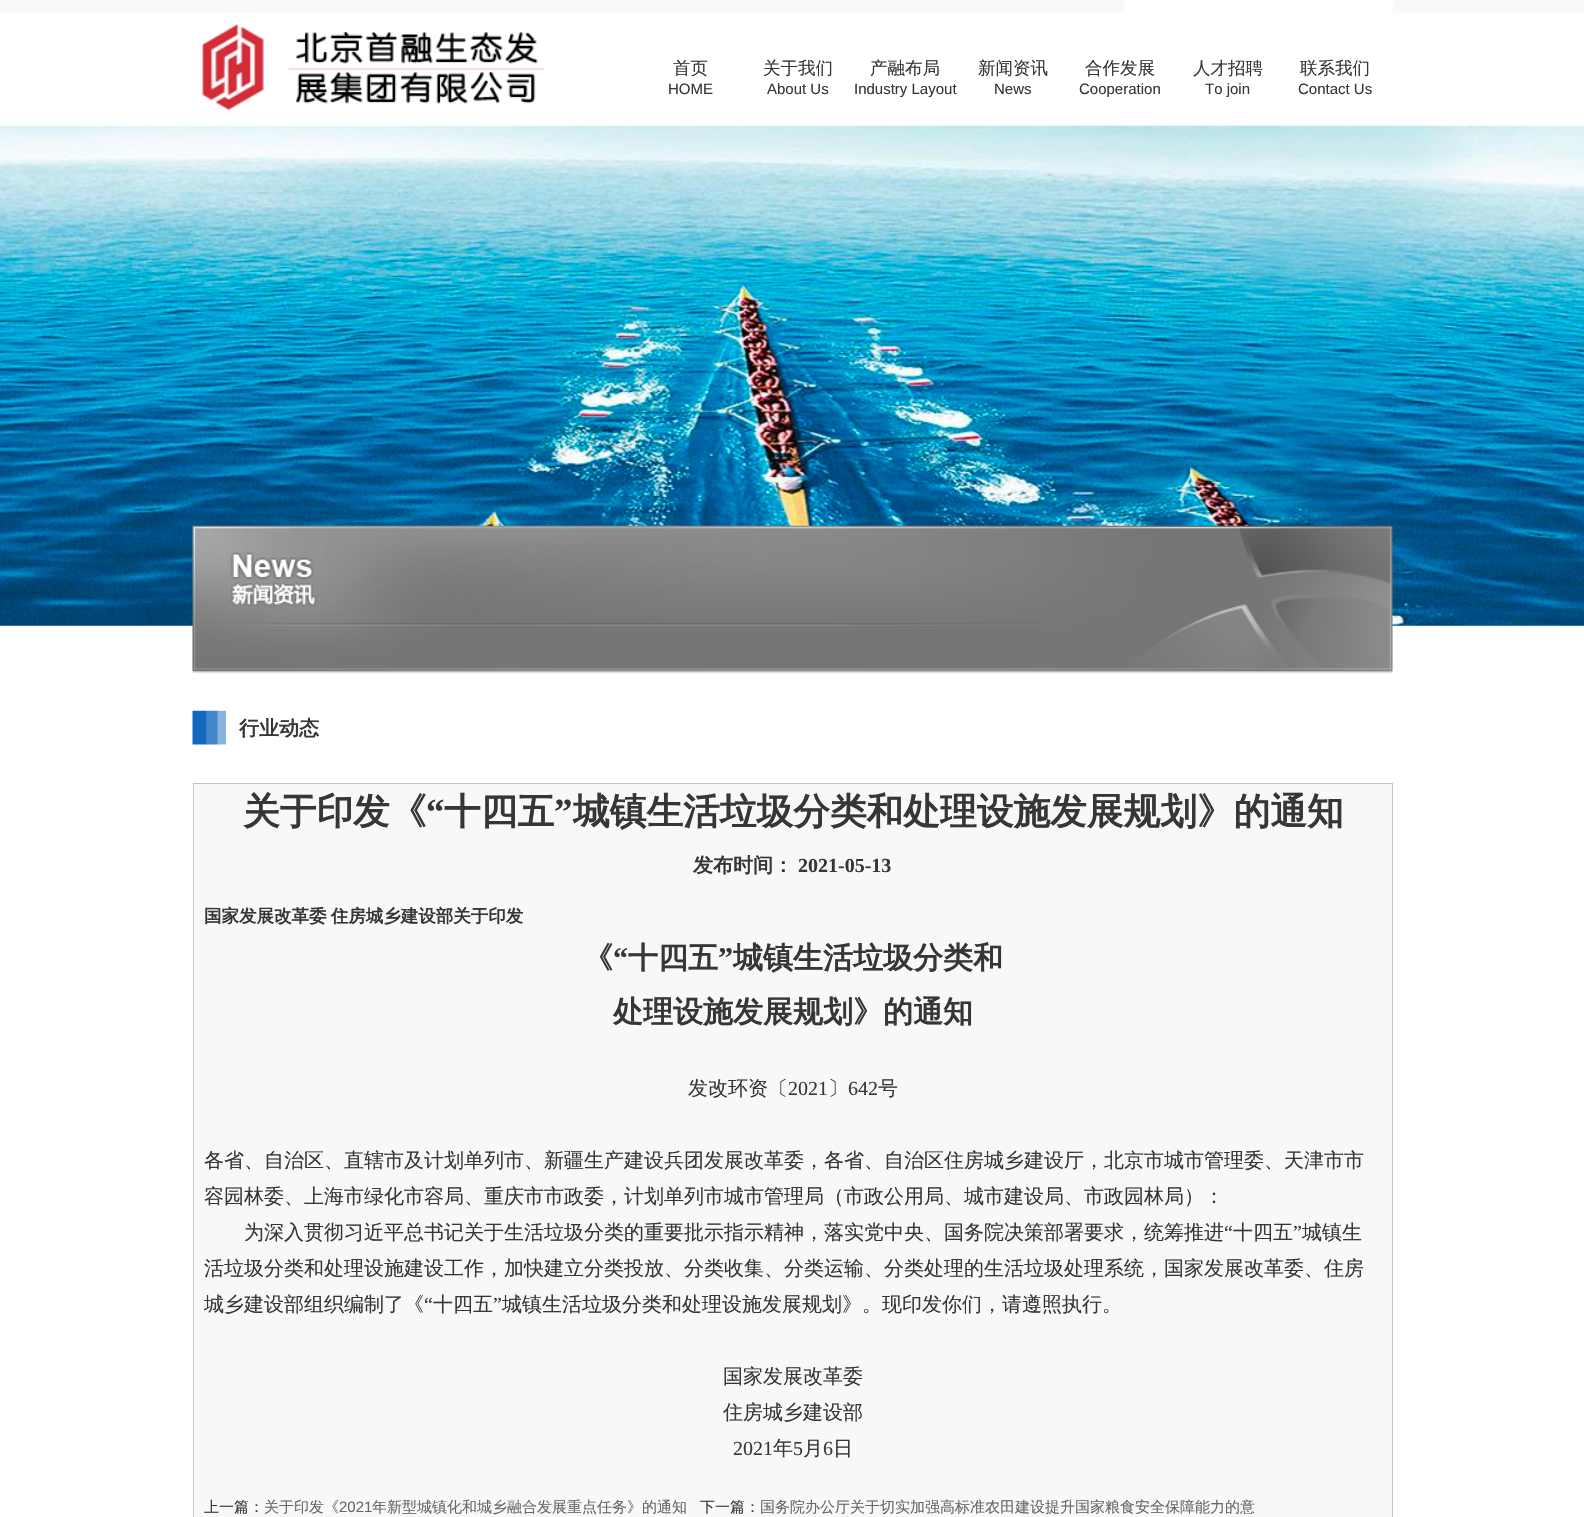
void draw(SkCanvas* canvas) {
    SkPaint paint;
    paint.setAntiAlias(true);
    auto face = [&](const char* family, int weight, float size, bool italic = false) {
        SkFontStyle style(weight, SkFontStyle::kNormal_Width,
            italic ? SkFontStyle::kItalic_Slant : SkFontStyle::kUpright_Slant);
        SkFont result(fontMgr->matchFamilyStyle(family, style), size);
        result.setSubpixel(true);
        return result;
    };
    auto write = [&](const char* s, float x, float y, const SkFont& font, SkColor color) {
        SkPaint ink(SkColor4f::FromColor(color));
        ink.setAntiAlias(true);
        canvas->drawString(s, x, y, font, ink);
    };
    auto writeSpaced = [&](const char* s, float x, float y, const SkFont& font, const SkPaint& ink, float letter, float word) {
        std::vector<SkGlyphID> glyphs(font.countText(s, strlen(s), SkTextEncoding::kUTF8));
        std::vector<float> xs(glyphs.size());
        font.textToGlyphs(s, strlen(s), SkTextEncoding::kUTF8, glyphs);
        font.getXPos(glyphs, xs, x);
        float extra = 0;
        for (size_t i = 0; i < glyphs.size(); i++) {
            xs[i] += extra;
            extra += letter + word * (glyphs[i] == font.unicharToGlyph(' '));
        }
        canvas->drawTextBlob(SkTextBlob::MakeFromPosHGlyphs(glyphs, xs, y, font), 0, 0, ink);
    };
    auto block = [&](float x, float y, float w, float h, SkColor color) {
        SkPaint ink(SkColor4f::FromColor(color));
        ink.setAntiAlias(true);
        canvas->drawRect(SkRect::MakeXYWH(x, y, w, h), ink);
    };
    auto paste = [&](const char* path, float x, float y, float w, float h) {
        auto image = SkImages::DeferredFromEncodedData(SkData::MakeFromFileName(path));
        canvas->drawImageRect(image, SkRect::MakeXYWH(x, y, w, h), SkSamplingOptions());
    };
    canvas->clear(SK_ColorWHITE);
    block(0, 0, 1584, 13, SkColorSetRGB(249, 249, 249));
    block(1124, 0, 269, 13, SK_ColorWHITE);
    paste("pic1.png", 202, 24, 342, 86);
    auto kFont1 = face("WenQuanYi Zen Hei", 500, 17.5f);
    write("首页", 673, 74, kFont1, SkColorSetRGB(54, 54, 54));
    auto kFont2 = face("Liberation Sans", 400, 15);
    write("HOME", 668, 94, kFont2, SkColorSetRGB(54, 54, 54));
    write("关于我们", 763, 74, kFont1, SkColorSetRGB(54, 54, 54));
    write("About Us", 767, 94, kFont2, SkColorSetRGB(54, 54, 54));
    write("产融布局", 870, 74, kFont1, SkColorSetRGB(54, 54, 54));
    write("Industry Layout", 854, 94, kFont2, SkColorSetRGB(54, 54, 54));
    write("新闻资讯", 978, 74, kFont1, SkColorSetRGB(54, 54, 54));
    write("News", 994, 94, kFont2, SkColorSetRGB(54, 54, 54));
    write("合作发展", 1085, 74, kFont1, SkColorSetRGB(54, 54, 54));
    write("Cooperation", 1079, 94, kFont2, SkColorSetRGB(54, 54, 54));
    write("人才招聘", 1193, 74, kFont1, SkColorSetRGB(54, 54, 54));
    write("To join", 1205, 94, kFont2, SkColorSetRGB(54, 54, 54));
    write("联系我们", 1300, 74, kFont1, SkColorSetRGB(54, 54, 54));
    write("Contact Us", 1298, 94, kFont2, SkColorSetRGB(54, 54, 54));
    paste("pic2.png", 0, 125, 1584, 501);
    paste("pic3.png", 192, 525, 1201, 149);
    paste("pic4.png", 230, 552, 87, 54);
    paste("pic5.png", 192, 710, 35, 35);
    block(226, 711, 1, 34, SK_ColorWHITE);
    auto kFont3 = face("WenQuanYi Zen Hei", 700, 20);
    write("行业动态", 239, 735, kFont3, SkColorSetRGB(54, 54, 54));
    paint.setColor(SkColorSetRGB(248, 248, 248));
    canvas->drawRect(SkRect::MakeXYWH(193.5f, 783.5f, 1199, 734), paint);
    paint.setStyle(SkPaint::kStroke_Style);
    paint.setStrokeWidth(1);
    paint.setColor(SkColorSetRGB(196, 196, 196));
    canvas->drawRect(SkRect::MakeXYWH(193.5f, 783.5f, 1199, 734), paint);
    auto kFont4 = face("WenQuanYi Zen Hei", 700, 36.7f);
    write("关于印发《", 243, 824, kFont4, SkColorSetRGB(54, 54, 54));
    auto kFont5 = face("Liberation Serif", 700, 36.7f);
    write("“", 426, 824, kFont5, SkColorSetRGB(54, 54, 54));
    write("十四五", 444, 824, kFont4, SkColorSetRGB(54, 54, 54));
    write("”", 554, 824, kFont5, SkColorSetRGB(54, 54, 54));
    write("城镇生活垃圾分类和处理设施发展规划》的通知", 573, 824, kFont4, SkColorSetRGB(54, 54, 54));
    write("发布时间：", 693, 872, kFont3, SkColorSetRGB(54, 54, 54));
    auto kFont6 = face("Liberation Serif", 700, 20);
    write("2021-05-13", 798, 872, kFont6, SkColorSetRGB(54, 54, 54));
    auto kFont7 = face("WenQuanYi Zen Hei", 700, 17.5f);
    paint.setStyle(SkPaint::kFill_Style);
    paint.setColor(SkColorSetRGB(54, 54, 54));
    writeSpaced("国家发展改革委 住房城乡建设部关于印发", 204, 922, kFont7, paint, 0, -1);
    auto kFont8 = face("WenQuanYi Zen Hei", 700, 30);
    write("《", 583, 968, kFont8, SkColorSetRGB(54, 54, 54));
    auto kFont9 = face("Liberation Serif", 700, 30);
    write("“", 613, 968, kFont9, SkColorSetRGB(54, 54, 54));
    write("十四五", 628, 968, kFont8, SkColorSetRGB(54, 54, 54));
    write("”", 718, 968, kFont9, SkColorSetRGB(54, 54, 54));
    write("城镇生活垃圾分类和", 733, 968, kFont8, SkColorSetRGB(54, 54, 54));
    write("处理设施发展规划》的通知", 613, 1022, kFont8, SkColorSetRGB(54, 54, 54));
    auto kFont10 = face("WenQuanYi Zen Hei", 500, 20);
    write("发改环资〔", 688, 1095, kFont10, SkColorSetRGB(54, 54, 54));
    auto kFont11 = face("Liberation Serif", 400, 20);
    write("2021", 788, 1095, kFont11, SkColorSetRGB(54, 54, 54));
    write("〕", 828, 1095, kFont10, SkColorSetRGB(54, 54, 54));
    write("642", 848, 1095, kFont11, SkColorSetRGB(54, 54, 54));
    write("号", 878, 1095, kFont10, SkColorSetRGB(54, 54, 54));
    write("各省、自治区、直辖市及计划单列市、新疆生产建设兵团发展改革委，各省、自治区住房城乡建设厅，北京市城市管理委、天津市市", 204, 1167, kFont10, SkColorSetRGB(54, 54, 54));
    write("容园林委、上海市绿化市容局、重庆市市政委，计划单列市城市管理局（市政公用局、城市建设局、市政园林局）：", 204, 1203, kFont10, SkColorSetRGB(54, 54, 54));
    write("为深入贯彻习近平总书记关于生活垃圾分类的重要批示指示精神，落实党中央、国务院决策部署要求，统筹推进", 244, 1239, kFont10, SkColorSetRGB(54, 54, 54));
    write("“", 1224, 1239, kFont11, SkColorSetRGB(54, 54, 54));
    write("十四五", 1233, 1239, kFont10, SkColorSetRGB(54, 54, 54));
    write("”", 1293, 1239, kFont11, SkColorSetRGB(54, 54, 54));
    write("城镇生", 1302, 1239, kFont10, SkColorSetRGB(54, 54, 54));
    write("活垃圾分类和处理设施建设工作，加快建立分类投放、分类收集、分类运输、分类处理的生活垃圾处理系统，国家发展改革委、住房", 204, 1275, kFont10, SkColorSetRGB(54, 54, 54));
    write("城乡建设部组织编制了《", 204, 1311, kFont10, SkColorSetRGB(54, 54, 54));
    write("“", 424, 1311, kFont11, SkColorSetRGB(54, 54, 54));
    write("十四五", 433, 1311, kFont10, SkColorSetRGB(54, 54, 54));
    write("”", 493, 1311, kFont11, SkColorSetRGB(54, 54, 54));
    write("城镇生活垃圾分类和处理设施发展规划》。现印发你们，请遵照执行。", 502, 1311, kFont10, SkColorSetRGB(54, 54, 54));
    write("国家发展改革委", 723, 1383, kFont10, SkColorSetRGB(54, 54, 54));
    write("住房城乡建设部", 723, 1419, kFont10, SkColorSetRGB(54, 54, 54));
    write("2021", 733, 1455, kFont11, SkColorSetRGB(54, 54, 54));
    write("年", 773, 1455, kFont10, SkColorSetRGB(54, 54, 54));
    write("5", 793, 1455, kFont11, SkColorSetRGB(54, 54, 54));
    write("月", 803, 1455, kFont10, SkColorSetRGB(54, 54, 54));
    write("6", 823, 1455, kFont11, SkColorSetRGB(54, 54, 54));
    write("日", 833, 1455, kFont10, SkColorSetRGB(54, 54, 54));
    auto kFont12 = face("WenQuanYi Zen Hei", 500, 15);
    write("上一篇：", 204, 1512, kFont12, SkColorSetRGB(54, 54, 54));
    write("关于印发《", 264, 1512, kFont12, SkColorSetRGB(102, 102, 102));
    write("2021", 339, 1512, kFont2, SkColorSetRGB(102, 102, 102));
    write("年新型城镇化和城乡融合发展重点任务》的通知", 372, 1512, kFont12, SkColorSetRGB(102, 102, 102));
    write("下一篇：", 700, 1512, kFont12, SkColorSetRGB(54, 54, 54));
    write("国务院办公厅关于切实加强高标准农田建设提升国家粮食安全保障能力的意", 760, 1512, kFont12, SkColorSetRGB(102, 102, 102));
}
